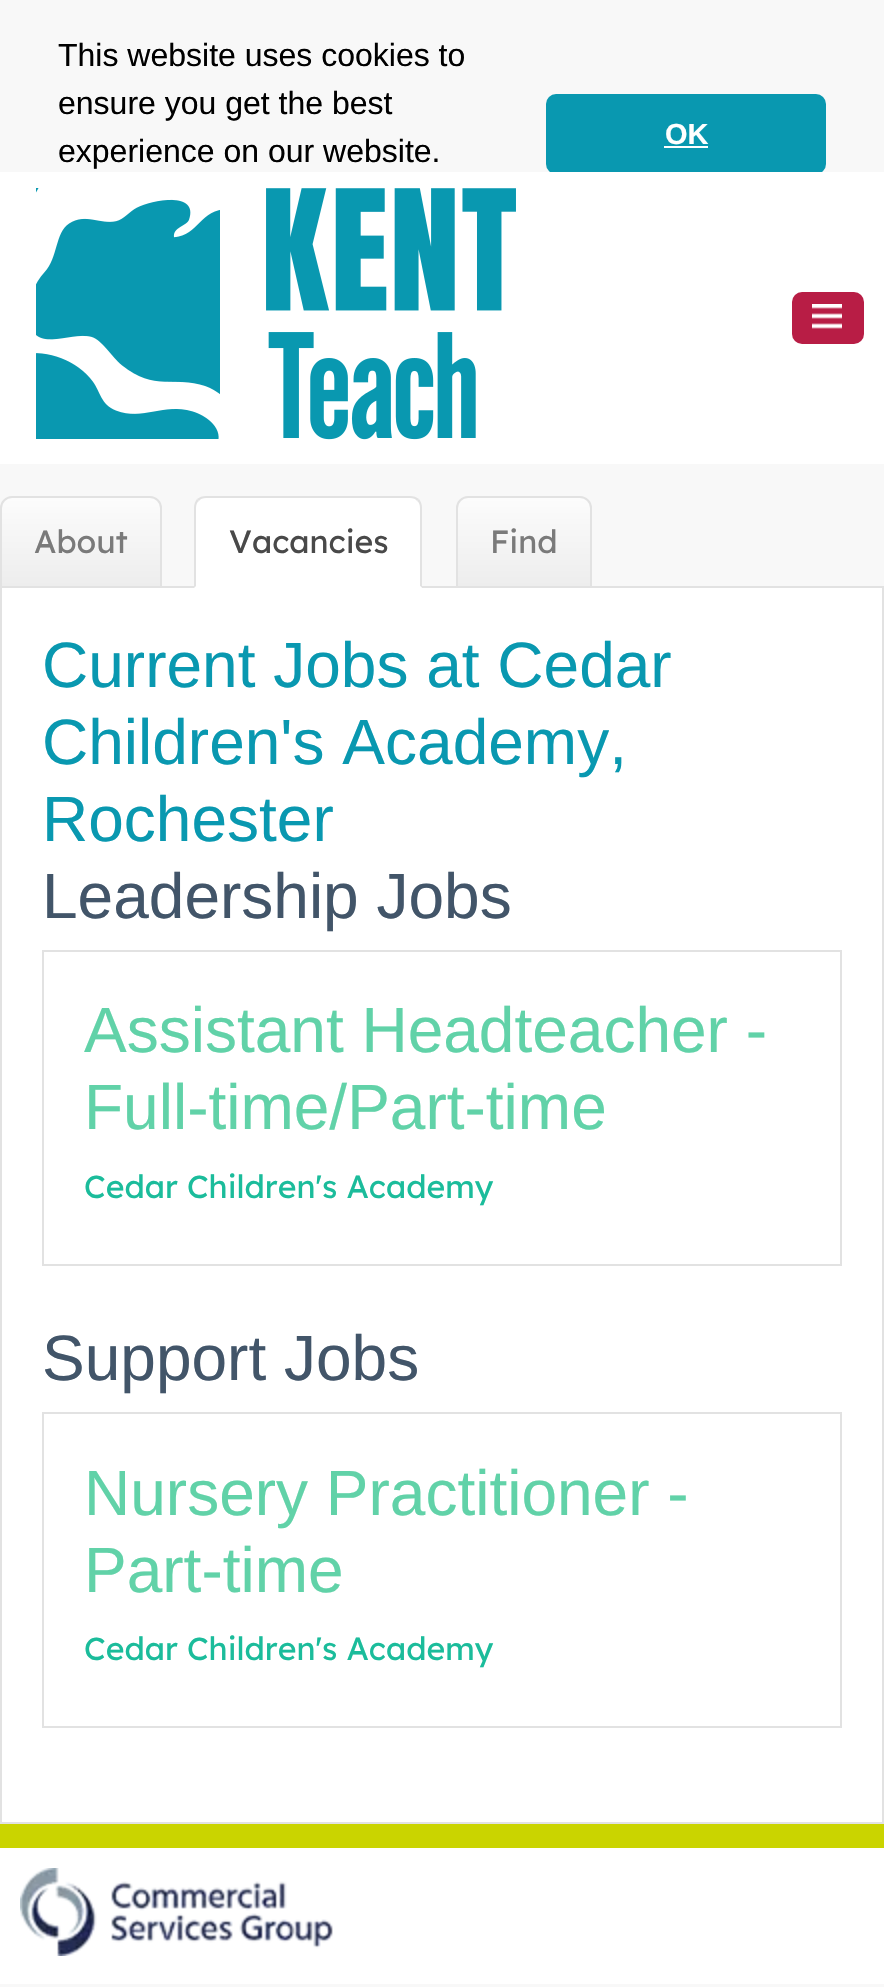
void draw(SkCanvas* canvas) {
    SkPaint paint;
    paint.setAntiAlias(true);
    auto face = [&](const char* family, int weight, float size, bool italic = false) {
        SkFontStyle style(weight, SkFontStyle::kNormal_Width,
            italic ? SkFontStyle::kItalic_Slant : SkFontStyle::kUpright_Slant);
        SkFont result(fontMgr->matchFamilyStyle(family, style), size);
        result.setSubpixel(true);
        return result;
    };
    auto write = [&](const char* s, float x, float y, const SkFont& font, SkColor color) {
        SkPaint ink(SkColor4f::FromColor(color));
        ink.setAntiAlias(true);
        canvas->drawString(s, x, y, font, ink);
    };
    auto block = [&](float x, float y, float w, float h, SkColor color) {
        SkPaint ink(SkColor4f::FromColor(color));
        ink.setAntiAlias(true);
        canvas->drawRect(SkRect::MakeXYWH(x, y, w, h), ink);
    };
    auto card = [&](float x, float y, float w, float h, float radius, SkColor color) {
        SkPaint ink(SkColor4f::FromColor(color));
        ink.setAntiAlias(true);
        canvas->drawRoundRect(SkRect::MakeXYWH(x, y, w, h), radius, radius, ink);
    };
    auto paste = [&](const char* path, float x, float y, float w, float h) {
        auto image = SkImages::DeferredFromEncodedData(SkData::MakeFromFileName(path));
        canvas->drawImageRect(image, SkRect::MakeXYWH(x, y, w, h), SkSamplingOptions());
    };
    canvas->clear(SkColorSetRGB(248, 248, 248));
    auto kFont1 = face("Liberation Sans", 400, 32);
    write("This website uses cookies to", 58, 66, kFont1, SK_ColorBLACK);
    write("ensure you get the best", 58, 114, kFont1, SK_ColorBLACK);
    write("experience on our website.", 58, 162, kFont1, SK_ColorBLACK);
    block(0, 172, 884, 292, SK_ColorWHITE);
    canvas->save();
    canvas->clipRect(SkRect::MakeXYWH(0, 0, 884, 172));
    card(546, 94, 280, 80, 10, SkColorSetRGB(9, 152, 176));
    canvas->restore();
    auto kFont2 = face("Liberation Sans", 700, 29);
    write("OK", 665, 144, kFont2, SK_ColorWHITE);
    block(664, 146, 44, 2, SK_ColorWHITE);
    paste("pic1.png", 36, 188, 480, 252);
    card(792, 292, 72, 52, 10, SkColorSetRGB(184, 29, 69));
    paste("pic2.png", 812, 304, 30, 25);
    canvas->save();
    canvas->clipPath(SkPathBuilder().moveTo(12, 496).lineTo(150, 496).cubicTo(156.5f, 496, 162, 501.5f, 162, 508).lineTo(162, 588).lineTo(0, 588).lineTo(0, 508).cubicTo(0, 501.5f, 5.5f, 496, 12, 496).close().detach(), true);
    {
        const SkColor colors[] = {SkColorSetRGB(252, 252, 252), SkColorSetRGB(237, 237, 237)};
        const float stops[] = {0, 1};
        const SkPoint ends[] = {{81, 498}, {81, 586}};
        paint.setShader(SkGradientShader::MakeLinear(ends, colors, stops, 2, SkTileMode::kClamp));
        paint.setAlpha(255);
    }
    canvas->drawRect(SkRect::MakeXYWH(0, 498, 162, 88), paint);
    canvas->restore();
    paint.setShader(nullptr);
    paint.setColor(SK_ColorWHITE);
    canvas->drawRect(SkRect::MakeXYWH(1, 587, 882, 1236), paint);
    paint.setStyle(SkPaint::kStroke_Style);
    paint.setStrokeWidth(2);
    paint.setColor(SkColorSetRGB(226, 226, 226));
    canvas->drawRect(SkRect::MakeXYWH(1, 587, 882, 1236), paint);
    canvas->drawPath(SkPathBuilder().moveTo(12, 497).lineTo(150, 497).cubicTo(156, 497, 161, 502, 161, 508).lineTo(161, 587).lineTo(1, 587).lineTo(1, 508).cubicTo(1, 502, 6, 497, 12, 497).close().detach(), paint);
    auto kFont3 = face("Lexend", 400, 32);
    write("About", 34, 553, kFont3, SkColorSetRGB(122, 122, 122));
    paint.setStyle(SkPaint::kFill_Style);
    paint.setColor(SK_ColorWHITE);
    canvas->drawPath(SkPathBuilder().moveTo(206, 496).lineTo(410, 496).cubicTo(416.5f, 496, 422, 501.5f, 422, 508).lineTo(422, 588).lineTo(194, 588).lineTo(194, 508).cubicTo(194, 501.5f, 199.5f, 496, 206, 496).close().detach(), paint);
    paint.setColor(SkColorSetRGB(226, 226, 226));
    canvas->drawPath(SkPathBuilder().moveTo(206, 496).cubicTo(202, 496, 200, 497, 197, 499).lineTo(199, 501).cubicTo(200, 499, 203, 498, 206, 498).lineTo(410, 498).cubicTo(413, 498, 416, 499, 417, 501).lineTo(419, 499).cubicTo(416, 497, 414, 496, 410, 496).close().detach(), paint);
    canvas->drawPath(SkPathBuilder().moveTo(422, 588).lineTo(422, 508).cubicTo(422, 504, 421, 502, 419, 499).lineTo(417, 501).cubicTo(419, 502, 420, 505, 420, 508).lineTo(420, 586).close().detach(), paint);
    paint.setColor(SK_ColorWHITE);
    canvas->drawPath(SkPathBuilder().moveTo(422, 588).lineTo(420, 586).lineTo(196, 586).lineTo(194, 588).close().detach(), paint);
    paint.setColor(SkColorSetRGB(226, 226, 226));
    canvas->drawPath(SkPathBuilder().moveTo(194, 588).lineTo(196, 586).lineTo(196, 508).cubicTo(196, 505, 197, 502, 199, 501).lineTo(197, 499).cubicTo(195, 502, 194, 504, 194, 508).close().detach(), paint);
    write("Vacancies", 229, 553, kFont3, SkColorSetRGB(73, 73, 73));
    canvas->save();
    canvas->clipPath(SkPathBuilder().moveTo(468, 496).lineTo(580, 496).cubicTo(586.5f, 496, 592, 501.5f, 592, 508).lineTo(592, 588).lineTo(456, 588).lineTo(456, 508).cubicTo(456, 501.5f, 461.5f, 496, 468, 496).close().detach(), true);
    {
        const SkColor colors[] = {SkColorSetRGB(252, 252, 252), SkColorSetRGB(237, 237, 237)};
        const float stops[] = {0, 1};
        const SkPoint ends[] = {{524, 498}, {524, 586}};
        paint.setShader(SkGradientShader::MakeLinear(ends, colors, stops, 2, SkTileMode::kClamp));
        paint.setAlpha(255);
    }
    canvas->drawRect(SkRect::MakeXYWH(456, 498, 136, 88), paint);
    canvas->restore();
    paint.setStyle(SkPaint::kStroke_Style);
    paint.setShader(nullptr);
    paint.setColor(SkColorSetRGB(226, 226, 226));
    canvas->drawPath(SkPathBuilder().moveTo(468, 497).lineTo(580, 497).cubicTo(586, 497, 591, 502, 591, 508).lineTo(591, 587).lineTo(457, 587).lineTo(457, 508).cubicTo(457, 502, 462, 497, 468, 497).close().detach(), paint);
    write("Find", 490, 553, kFont3, SkColorSetRGB(122, 122, 122));
    auto kFont4 = face("Liberation Sans", 400, 64);
    write("Current Jobs at Cedar", 42, 687, kFont4, SkColorSetRGB(9, 152, 176));
    write("Children's Academy,", 42, 764, kFont4, SkColorSetRGB(9, 152, 176));
    write("Rochester", 42, 841, kFont4, SkColorSetRGB(9, 152, 176));
    write("Leadership Jobs", 42, 918, kFont4, SkColorSetRGB(66, 85, 105));
    canvas->drawRect(SkRect::MakeXYWH(43, 951, 798, 314), paint);
    write("Assistant Headteacher -", 84, 1052, kFont4, SkColorSetRGB(97, 210, 168));
    write("Full-time/Part-time", 84, 1129, kFont4, SkColorSetRGB(97, 210, 168));
    write("Cedar Children's Academy", 84, 1198, kFont3, SkColorSetRGB(27, 188, 155));
    write("Support Jobs", 42, 1380, kFont4, SkColorSetRGB(66, 85, 105));
    canvas->drawRect(SkRect::MakeXYWH(43, 1413, 798, 314), paint);
    write("Nursery Practitioner -", 84, 1515, kFont4, SkColorSetRGB(97, 210, 168));
    write("Part-time", 84, 1592, kFont4, SkColorSetRGB(97, 210, 168));
    write("Cedar Children's Academy", 84, 1660, kFont3, SkColorSetRGB(27, 188, 155));
    block(0, 1848, 884, 136, SK_ColorWHITE);
    block(0, 1824, 884, 24, SkColorSetRGB(202, 212, 0));
    paste("pic3.png", 20, 1868, 313, 88);
}
